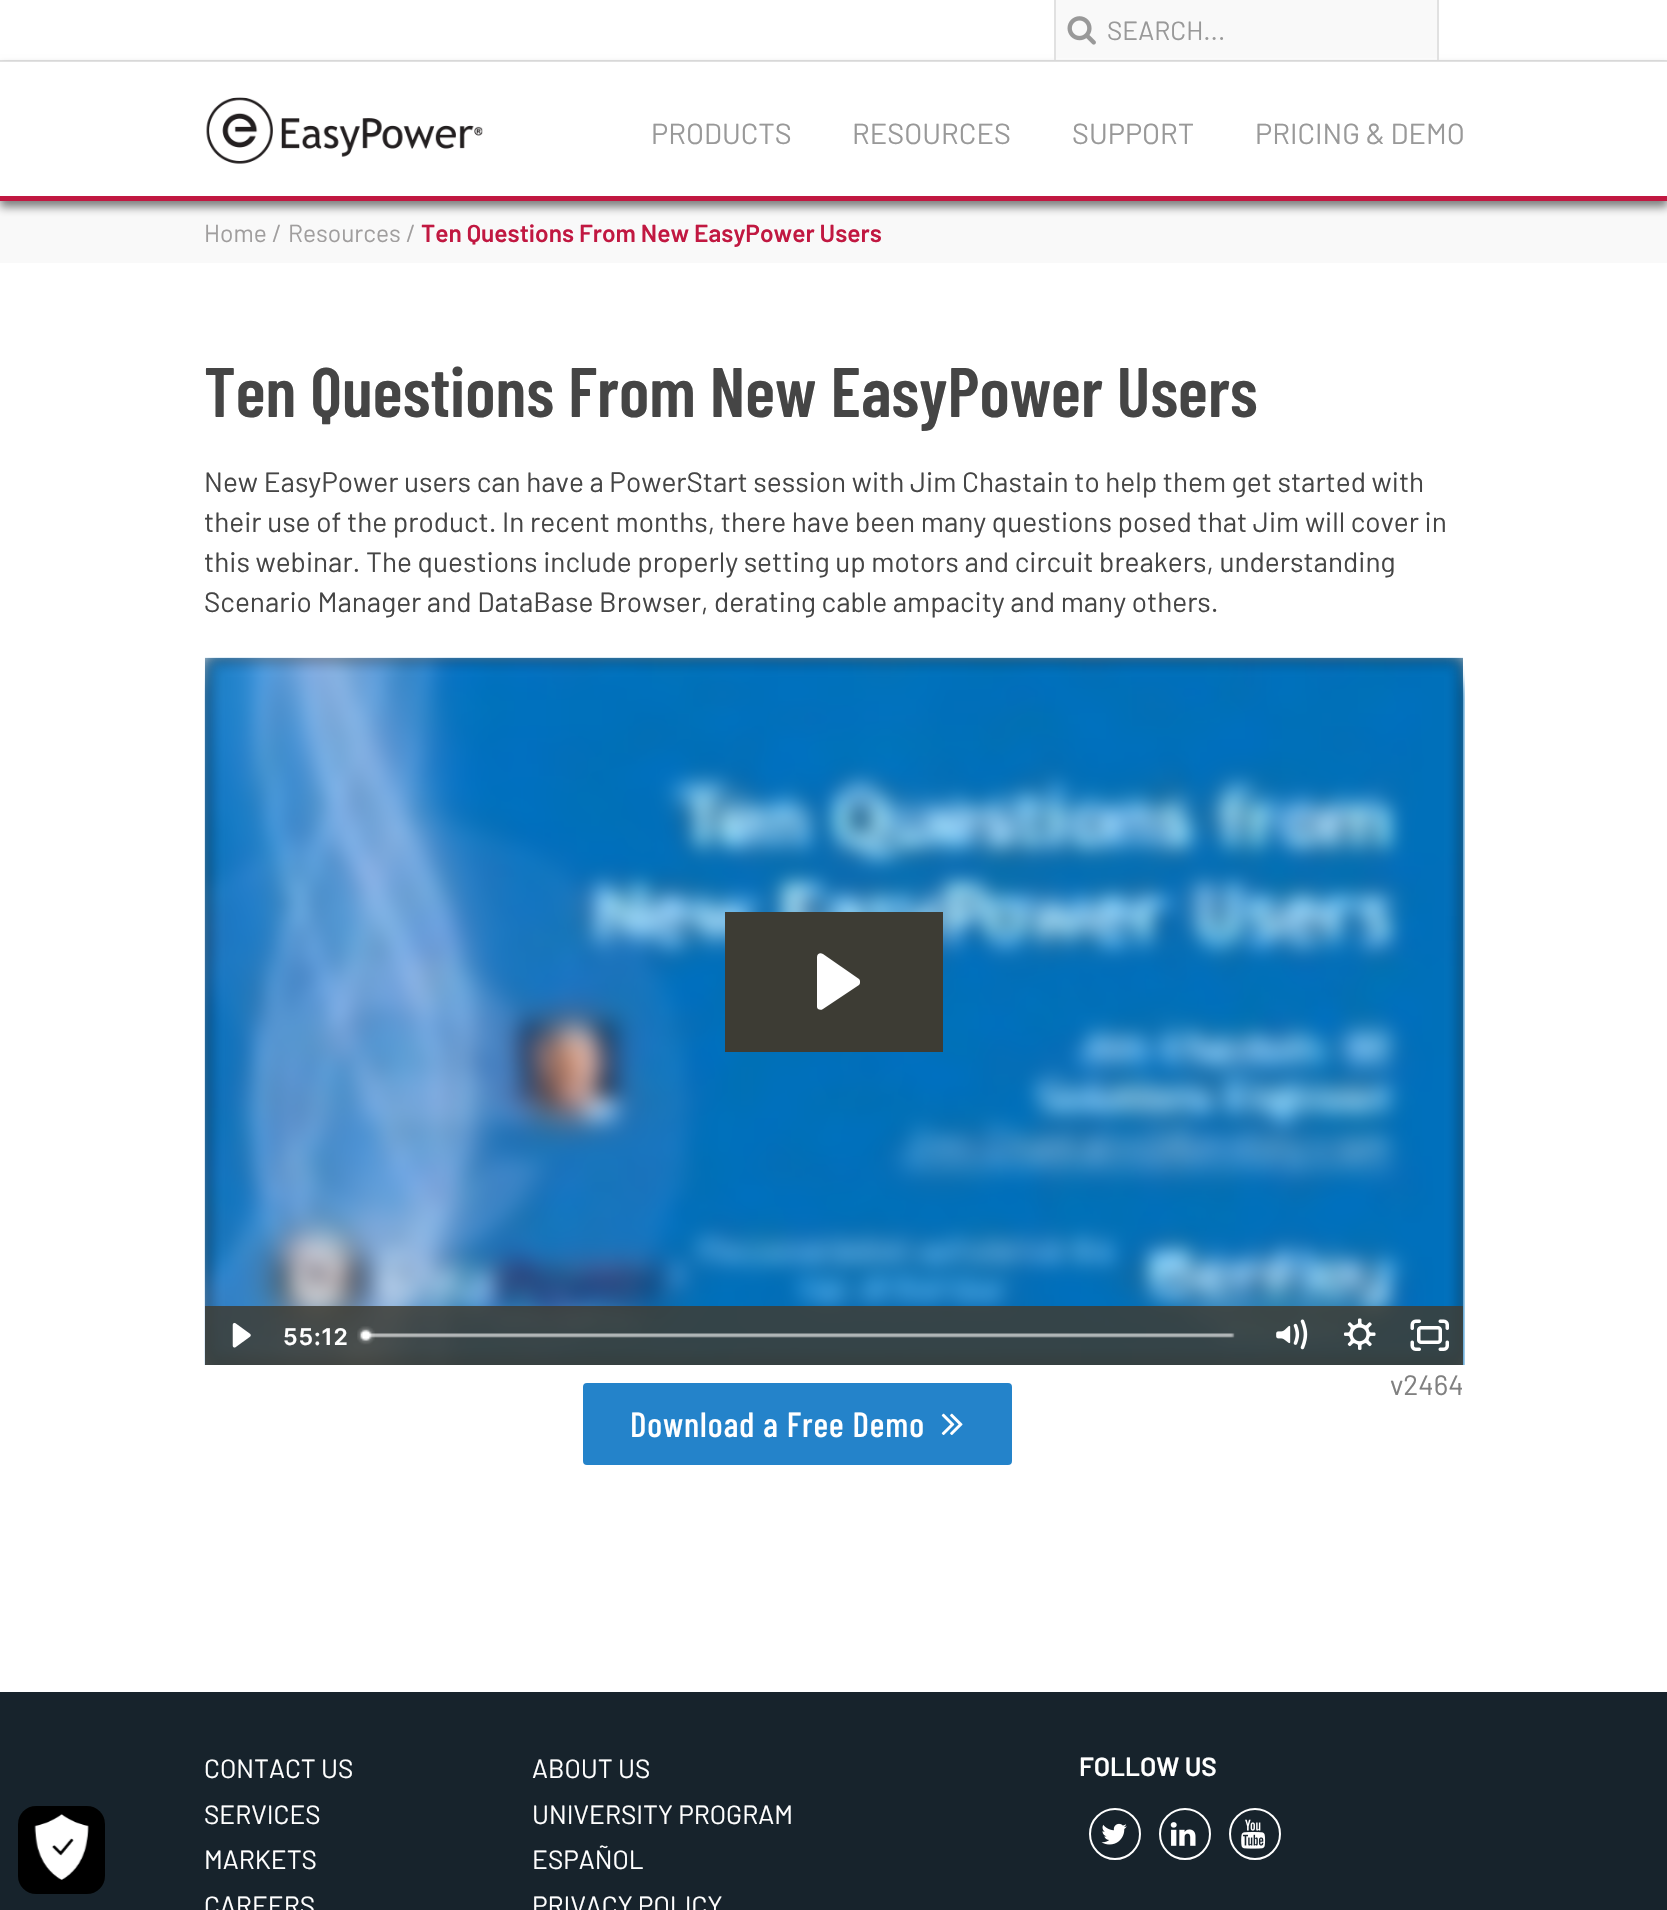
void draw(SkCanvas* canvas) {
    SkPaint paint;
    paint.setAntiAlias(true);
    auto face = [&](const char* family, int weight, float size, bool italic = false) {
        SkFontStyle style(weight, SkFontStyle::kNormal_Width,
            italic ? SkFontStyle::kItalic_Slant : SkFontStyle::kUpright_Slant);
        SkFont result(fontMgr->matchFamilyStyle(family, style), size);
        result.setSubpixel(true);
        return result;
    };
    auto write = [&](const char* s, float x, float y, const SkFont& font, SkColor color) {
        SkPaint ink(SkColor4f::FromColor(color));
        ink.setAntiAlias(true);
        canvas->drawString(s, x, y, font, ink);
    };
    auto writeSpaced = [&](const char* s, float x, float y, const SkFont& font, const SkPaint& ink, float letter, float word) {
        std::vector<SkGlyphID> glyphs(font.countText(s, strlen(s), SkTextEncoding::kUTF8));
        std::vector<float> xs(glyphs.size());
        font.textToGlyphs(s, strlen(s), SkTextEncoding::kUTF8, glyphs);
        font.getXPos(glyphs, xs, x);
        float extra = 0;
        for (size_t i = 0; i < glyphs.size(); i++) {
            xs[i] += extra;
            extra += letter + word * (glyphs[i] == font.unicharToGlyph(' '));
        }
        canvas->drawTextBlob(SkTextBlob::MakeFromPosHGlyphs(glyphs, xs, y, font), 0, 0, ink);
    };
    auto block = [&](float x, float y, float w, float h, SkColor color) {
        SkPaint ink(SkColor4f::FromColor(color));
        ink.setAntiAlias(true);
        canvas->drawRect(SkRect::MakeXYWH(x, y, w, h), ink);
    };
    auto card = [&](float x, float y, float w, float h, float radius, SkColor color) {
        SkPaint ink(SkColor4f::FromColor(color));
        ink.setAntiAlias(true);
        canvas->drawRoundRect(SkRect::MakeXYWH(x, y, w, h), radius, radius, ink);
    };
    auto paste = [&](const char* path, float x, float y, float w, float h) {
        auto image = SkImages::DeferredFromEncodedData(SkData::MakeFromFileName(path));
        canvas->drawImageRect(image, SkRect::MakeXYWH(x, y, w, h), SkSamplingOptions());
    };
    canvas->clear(SK_ColorWHITE);
    block(0, 60, 1667, 2, SkColorSetRGB(225, 225, 225));
    block(0, 201, 1667, 62, SkColorSetRGB(249, 249, 249));
    canvas->save();
    canvas->clipPath(SkPathBuilder(SkPathFillType::kEvenOdd).moveTo(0, 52).lineTo(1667, 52).lineTo(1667, 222).lineTo(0, 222).close().moveTo(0, 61).lineTo(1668, 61).lineTo(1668, 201).lineTo(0, 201).close().detach(), true);
    paint.setColor(SkColorSetARGB(128, 0, 0, 0));
    paint.setMaskFilter(SkMaskFilter::MakeBlur(kNormal_SkBlurStyle, 4.5f));
    canvas->drawRect(SkRect::MakeXYWH(0, 67, 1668, 140), paint);
    paint.setMaskFilter(nullptr);
    canvas->restore();
    block(1056, 0, 381, 58, SkColorSetRGB(249, 249, 249));
    paste("pic1.png", 1067, 16, 29, 29);
    block(1437, 0, 2, 60, SkColorSetRGB(225, 225, 225));
    block(1054, 0, 2, 60, SkColorSetRGB(225, 225, 225));
    auto kFont1 = face("Barlow", 400, 26.25f);
    write("SEARCH...", 1107, 40, kFont1, SkColorSetRGB(153, 153, 153));
    block(0, 196, 1667, 5, SkColorSetRGB(193, 24, 65));
    paste("pic2.png", 206, 97, 277, 67);
    auto kFont2 = face("Barlow", 400, 29);
    write("PRODUCTS", 651, 144, kFont2, SkColorSetRGB(153, 153, 153));
    write("RESOURCES", 852, 144, kFont2, SkColorSetRGB(153, 153, 153));
    write("SUPPORT", 1072, 144, kFont2, SkColorSetRGB(153, 153, 153));
    write("PRICING & DEMO", 1255, 144, kFont2, SkColorSetRGB(153, 153, 153));
    auto kFont3 = face("Barlow", 400, 24.5f);
    write("Home", 204, 242, kFont3, SkColorSetRGB(160, 158, 158));
    write("/", 272, 242, kFont3, SkColorSetRGB(160, 158, 158));
    write("Resources", 288, 242, kFont3, SkColorSetRGB(160, 158, 158));
    write("/", 406, 242, kFont3, SkColorSetRGB(160, 158, 158));
    auto kFont4 = face("Barlow", 600, 24.5f);
    write("Ten Questions From New EasyPower Users", 421, 242, kFont4, SkColorSetRGB(193, 24, 65));
    auto kFont5 = face("Barlow Condensed", 600, 70);
    write("Ten Questions From New EasyPower Users", 204, 417, kFont5, SkColorSetRGB(69, 69, 69));
    auto kFont6 = face("Barlow", 400, 28);
    write("New EasyPower users can have a PowerStart session with Jim Chastain to help them get started with", 204, 492, kFont6, SkColorSetRGB(69, 69, 69));
    write("their use of the product. In recent months, there have been many questions posed that Jim will cover in", 204, 532, kFont6, SkColorSetRGB(69, 69, 69));
    write("this webinar. The questions include properly setting up motors and circuit breakers, understanding", 204, 572, kFont6, SkColorSetRGB(69, 69, 69));
    write("Scenario Manager and DataBase Browser, derating cable ampacity and many others.", 204, 612, kFont6, SkColorSetRGB(69, 69, 69));
    paste("pic3.png", 204, 666, 1261, 699);
    paint.setColor(SkColorSetRGB(36, 131, 202));
    canvas->drawRoundRect(SkRect::MakeXYWH(585, 1385, 425, 78), 2, 2, paint);
    paint.setStyle(SkPaint::kStroke_Style);
    paint.setStrokeWidth(4);
    canvas->drawRoundRect(SkRect::MakeXYWH(585, 1385, 425, 78), 2, 2, paint);
    canvas->save();
    canvas->clipRect(SkRect::MakeXYWH(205, 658, 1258, 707));
    paint.setStyle(SkPaint::kFill_Style);
    paint.setColor(SK_ColorBLACK);
    paint.setMaskFilter(SkMaskFilter::MakeBlur(kNormal_SkBlurStyle, 9));
    canvas->drawRect(SkRect::MakeXYWH(205, 656, 1260, 707), paint);
    paint.setMaskFilter(nullptr);
    canvas->restore();
    paste("pic4.png", 204, 657, 1259, 708);
    block(725, 912, 218, 140, SkColorSetRGB(61, 60, 52));
    paint.setColor(SK_ColorWHITE);
    canvas->drawPath(SkPathBuilder(SkPathFillType::kEvenOdd).moveTo(823, 954).cubicTo(820, 952, 817, 954, 817, 957).lineTo(817, 1007).cubicTo(817, 1009, 820, 1011, 823, 1009).lineTo(859, 985).cubicTo(860, 984, 860, 983, 860, 982).cubicTo(860, 981, 860, 980, 859, 979).close().detach(), paint);
    block(205, 1306, 1258, 59, SkColorSetARGB(217, 61, 60, 52));
    paste("pic5.png", 232, 1322, 19, 26);
    auto kFont7 = face("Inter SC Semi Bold", 600, 23);
    writeSpaced("55:12", 283, 1345, kFont7, paint, 0.9f, 0);
    paste("pic6.png", 357, 1326, 878, 19);
    paste("pic7.png", 1276, 1319, 32, 31);
    paste("pic8.png", 1344, 1318, 32, 32);
    paste("pic9.png", 1410, 1319, 39, 32);
    write("v2464", 1390, 1395, kFont6, SkColorSetRGB(128, 128, 128));
    auto kFont8 = face("Barlow Condensed", 500, 35);
    writeSpaced("Download a Free Demo", 630, 1437, kFont8, paint, 0.9f, 0);
    paste("pic10.png", 941, 1413, 22, 22);
    block(0, 1692, 1667, 218, SkColorSetRGB(23, 35, 44));
    card(18, 1806, 87, 88, 18, SK_ColorBLACK);
    paste("pic11.png", 34, 1814, 55, 66);
    write("CONTACT US", 204, 1778, kFont1, SK_ColorWHITE);
    write("SERVICES", 204, 1824, kFont1, SK_ColorWHITE);
    write("MARKETS", 204, 1869, kFont1, SK_ColorWHITE);
    write("CAREERS", 204, 1915, kFont1, SK_ColorWHITE);
    write("ABOUT US", 532, 1778, kFont1, SK_ColorWHITE);
    write("UNIVERSITY PROGRAM", 532, 1824, kFont1, SK_ColorWHITE);
    write("ESPAÑOL", 532, 1869, kFont1, SK_ColorWHITE);
    write("PRIVACY POLICY", 532, 1915, kFont1, SK_ColorWHITE);
    auto kFont9 = face("Barlow", 600, 26.25f);
    write("FOLLOW US", 1079, 1776, kFont9, SK_ColorWHITE);
    paint.setStyle(SkPaint::kStroke_Style);
    paint.setStrokeWidth(2);
    canvas->drawCircle(1115, 1834, 25, paint);
    paste("pic12.png", 1101, 1823, 26, 22);
    canvas->drawCircle(1185, 1834, 25, paint);
    paste("pic13.png", 1170, 1822, 26, 24);
    canvas->drawCircle(1255, 1834, 25, paint);
    paste("pic14.png", 1241, 1819, 25, 30);
}
